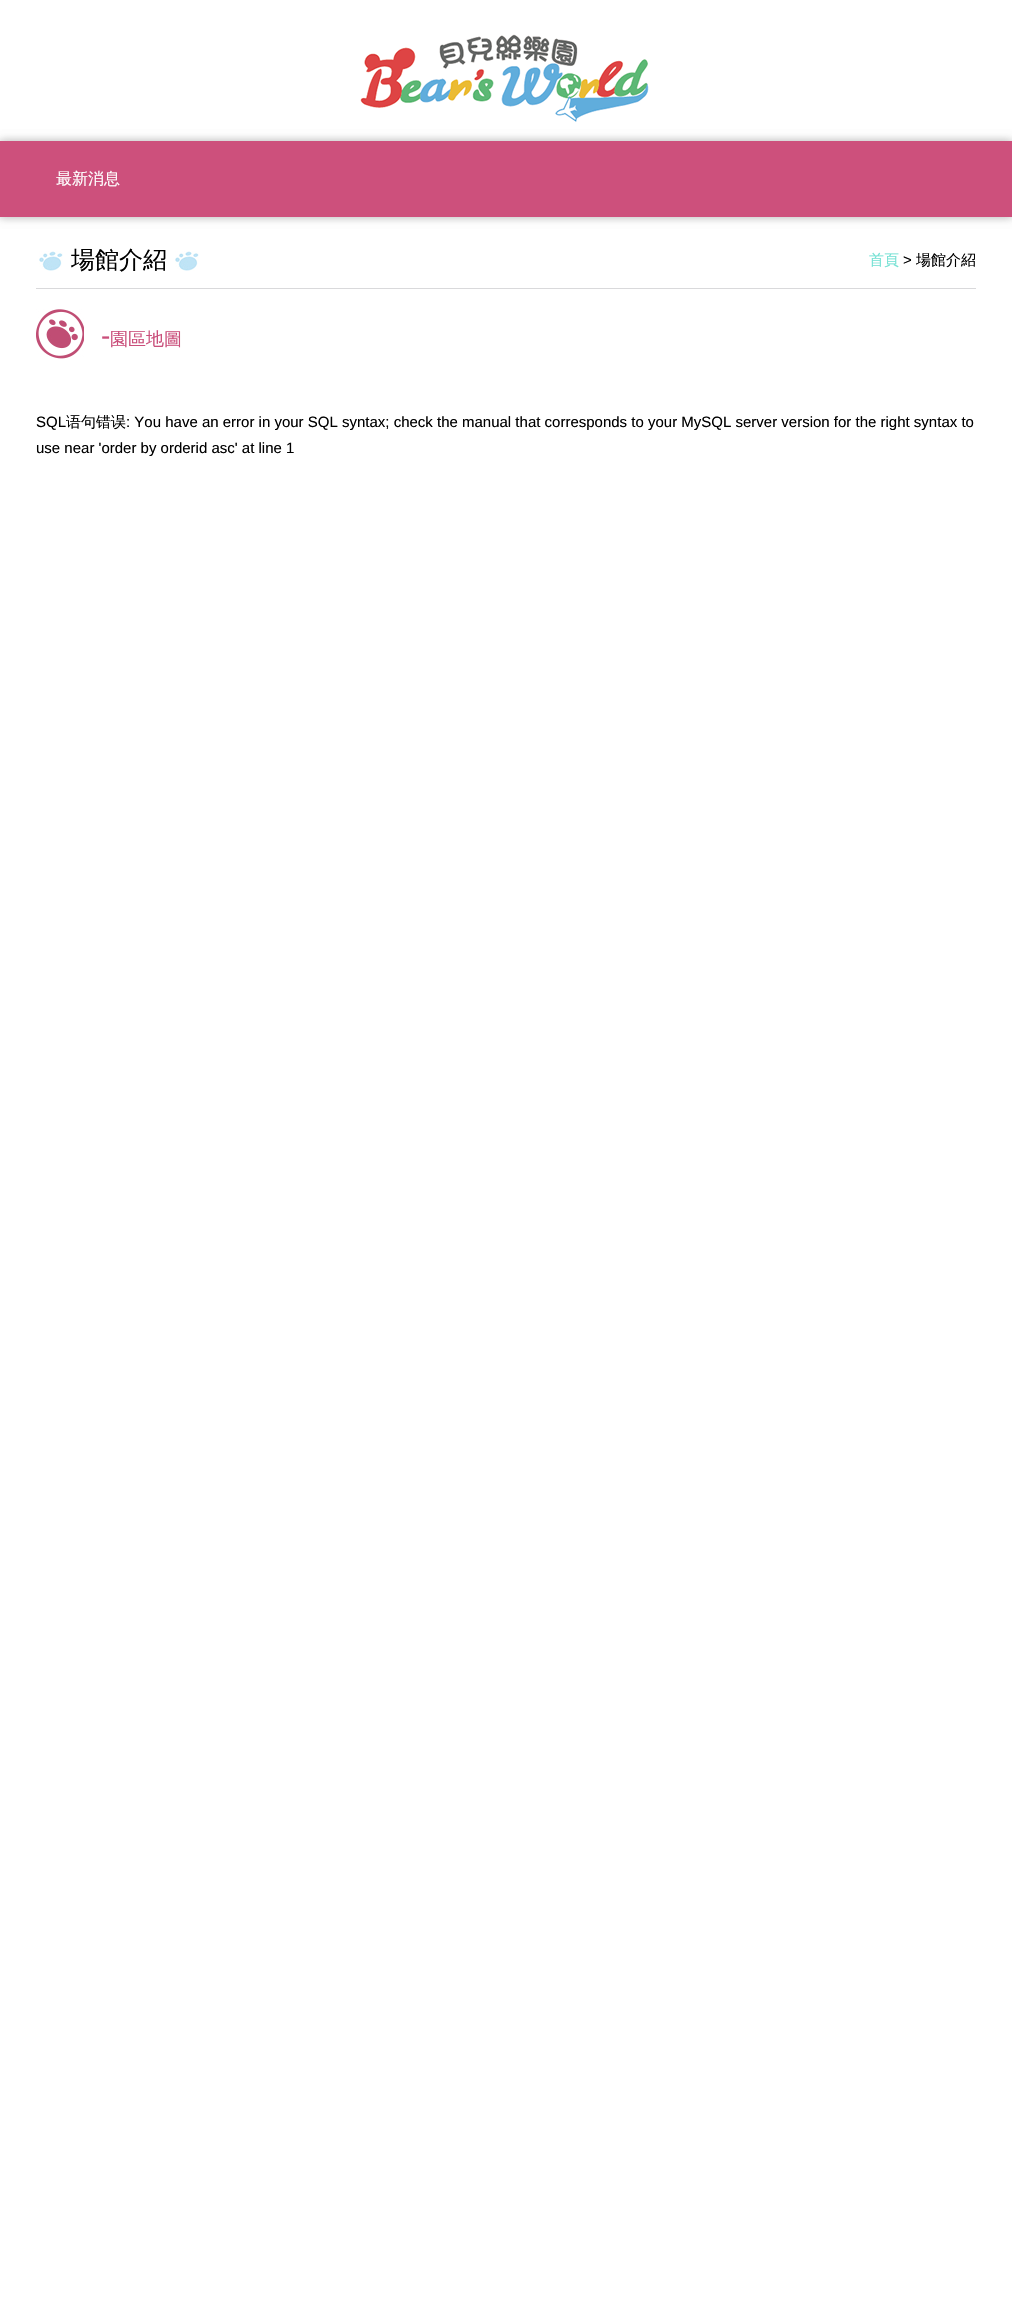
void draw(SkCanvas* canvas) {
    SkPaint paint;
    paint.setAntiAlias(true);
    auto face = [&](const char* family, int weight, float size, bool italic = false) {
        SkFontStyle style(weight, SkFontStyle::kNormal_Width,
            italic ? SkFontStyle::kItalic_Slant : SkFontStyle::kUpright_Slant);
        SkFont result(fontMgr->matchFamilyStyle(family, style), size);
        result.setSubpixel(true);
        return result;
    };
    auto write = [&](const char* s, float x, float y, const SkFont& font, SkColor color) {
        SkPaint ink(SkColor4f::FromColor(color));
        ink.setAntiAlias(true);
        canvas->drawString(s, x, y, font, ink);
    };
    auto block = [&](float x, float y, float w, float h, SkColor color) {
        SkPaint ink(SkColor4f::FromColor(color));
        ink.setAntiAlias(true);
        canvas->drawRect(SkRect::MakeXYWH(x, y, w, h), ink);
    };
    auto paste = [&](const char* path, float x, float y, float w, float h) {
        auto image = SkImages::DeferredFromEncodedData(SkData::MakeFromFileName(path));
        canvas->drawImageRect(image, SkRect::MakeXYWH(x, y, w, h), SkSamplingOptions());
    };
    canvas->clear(SK_ColorWHITE);
    paste("pic1.png", 360, 34, 289, 88);
    paint.setColor(SkColorSetRGB(204, 204, 204));
    paint.setMaskFilter(SkMaskFilter::MakeBlur(kNormal_SkBlurStyle, 4));
    canvas->drawRect(SkRect::MakeXYWH(2, 141, 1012, 76), paint);
    paint.setMaskFilter(nullptr);
    paint.setMaskFilter(SkMaskFilter::MakeBlur(kNormal_SkBlurStyle, 4));
    canvas->drawRect(SkRect::MakeXYWH(-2, 141, 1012, 76), paint);
    paint.setMaskFilter(nullptr);
    block(0, 141, 1012, 76, SkColorSetRGB(205, 80, 124));
    auto kFont1 = face("WenQuanYi Zen Hei", 500, 16);
    write("最新消息", 56, 184, kFont1, SK_ColorWHITE);
    block(36, 288, 940, 1, SkColorSetRGB(217, 217, 219));
    paste("pic2.png", 39, 251, 24, 20);
    auto kFont2 = face("WenQuanYi Zen Hei", 500, 24);
    write("場館介紹", 71, 268, kFont2, SK_ColorBLACK);
    paste("pic2.png", 175, 251, 24, 20);
    auto kFont3 = face("WenQuanYi Zen Hei", 500, 15);
    write("首頁", 869, 265, kFont3, SkColorSetRGB(117, 225, 212));
    auto kFont4 = face("Liberation Sans", 400, 15);
    write(">", 903, 265, kFont4, SK_ColorBLACK);
    write("場館介紹", 916, 265, kFont3, SK_ColorBLACK);
    paste("pic3.png", 36, 309, 48, 50);
    auto kFont5 = face("Liberation Sans", 400, 28);
    write("-", 101, 345, kFont5, SkColorSetRGB(202, 79, 123));
    auto kFont6 = face("WenQuanYi Zen Hei", 500, 18);
    write("園區地圖", 110, 345, kFont6, SkColorSetRGB(202, 79, 123));
    write("SQL", 36, 427, kFont4, SK_ColorBLACK);
    write("语句错误", 66, 427, kFont3, SK_ColorBLACK);
    write(": You have an error in your SQL syntax; check the manual that corresponds to your MySQL server version for the right syntax to", 126, 427, kFont4, SK_ColorBLACK);
    write("use near 'order by orderid asc' at line 1", 36, 453, kFont4, SK_ColorBLACK);
}
